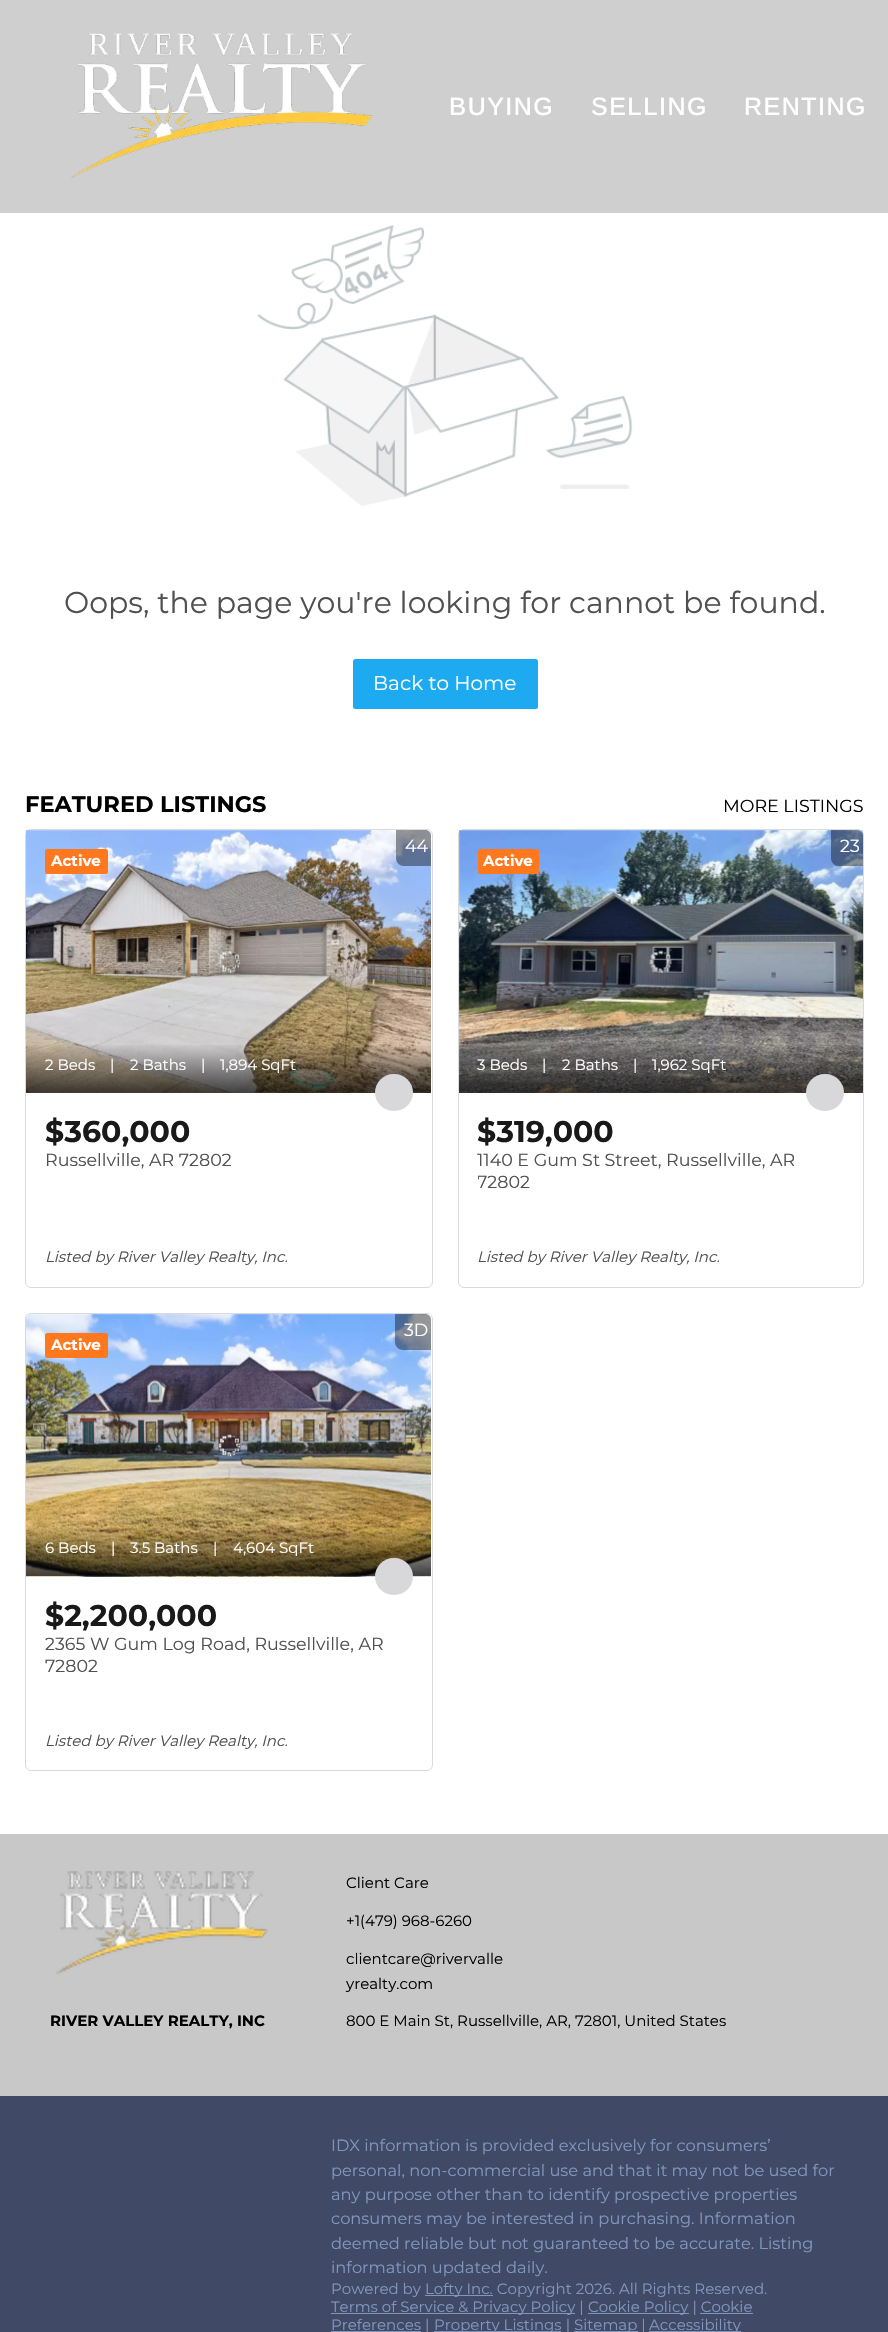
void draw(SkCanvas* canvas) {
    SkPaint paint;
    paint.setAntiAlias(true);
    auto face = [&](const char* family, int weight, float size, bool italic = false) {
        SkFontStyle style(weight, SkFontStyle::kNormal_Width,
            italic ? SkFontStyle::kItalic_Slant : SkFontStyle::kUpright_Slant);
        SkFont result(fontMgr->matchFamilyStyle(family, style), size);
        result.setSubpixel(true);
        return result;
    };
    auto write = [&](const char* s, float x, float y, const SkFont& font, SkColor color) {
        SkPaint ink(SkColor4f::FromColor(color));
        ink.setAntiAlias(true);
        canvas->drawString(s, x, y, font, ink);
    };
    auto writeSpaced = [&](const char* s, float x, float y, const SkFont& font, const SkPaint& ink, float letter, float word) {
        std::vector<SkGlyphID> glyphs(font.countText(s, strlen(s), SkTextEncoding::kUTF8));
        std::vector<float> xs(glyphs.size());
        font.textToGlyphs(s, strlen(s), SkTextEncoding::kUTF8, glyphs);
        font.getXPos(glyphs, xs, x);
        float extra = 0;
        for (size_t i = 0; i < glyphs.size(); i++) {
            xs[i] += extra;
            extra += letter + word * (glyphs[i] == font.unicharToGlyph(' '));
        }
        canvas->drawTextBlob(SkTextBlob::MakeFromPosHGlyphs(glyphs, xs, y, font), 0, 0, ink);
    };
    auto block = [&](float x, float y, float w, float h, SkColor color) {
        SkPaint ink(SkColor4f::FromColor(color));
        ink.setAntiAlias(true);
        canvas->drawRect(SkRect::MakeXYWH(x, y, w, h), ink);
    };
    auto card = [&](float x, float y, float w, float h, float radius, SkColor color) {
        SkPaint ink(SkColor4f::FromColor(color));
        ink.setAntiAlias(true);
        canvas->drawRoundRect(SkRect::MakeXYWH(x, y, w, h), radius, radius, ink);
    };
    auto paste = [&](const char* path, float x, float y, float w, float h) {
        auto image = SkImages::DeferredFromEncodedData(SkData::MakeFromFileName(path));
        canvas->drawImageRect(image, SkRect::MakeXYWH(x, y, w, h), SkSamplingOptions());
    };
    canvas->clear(SK_ColorWHITE);
    block(0, 0, 888, 213, SkColorSetRGB(207, 207, 207));
    paste("pic1.png", 71, 33, 302, 145);
    auto kFont1 = face("Arimo", 500, 25);
    paint.setColor(SK_ColorWHITE);
    writeSpaced("BUYING", 449, 115, kFont1, paint, 1.5f, 0);
    writeSpaced("SELLING", 591, 115, kFont1, paint, 1.5f, 0);
    writeSpaced("RENTING", 744, 115, kFont1, paint, 1.5f, 0);
    paste("pic2.png", 257, 225, 376, 281);
    auto kFont2 = face("Montserrat", 400, 30);
    write("Oops, the page you're looking for cannot be found.", 64, 613, kFont2, SkColorSetRGB(80, 80, 80));
    card(353, 659, 185, 50, 2.5f, SkColorSetRGB(29, 170, 240));
    auto kFont3 = face("Montserrat", 400, 20);
    write("Back to Home", 373, 690, kFont3, SK_ColorWHITE);
    auto kFont4 = face("Montserrat", 700, 22.5f);
    write("FEATURED LISTINGS", 25, 812, kFont4, SK_ColorBLACK);
    auto kFont5 = face("Montserrat", 400, 17.5f);
    write("MORE LISTINGS", 723, 812, kFont5, SK_ColorBLACK);
    paint.setStyle(SkPaint::kStroke_Style);
    paint.setStrokeWidth(1);
    paint.setColor(SkColorSetRGB(218, 218, 218));
    canvas->drawRoundRect(SkRect::MakeXYWH(25.5f, 829.5f, 407, 458), 5.5f, 5.5f, paint);
    paste("pic3.png", 26, 830, 405, 263);
    paste("pic4.png", 218, 950, 23, 24);
    paint.setStyle(SkPaint::kFill_Style);
    paint.setColor(SkColorSetARGB(102, 0, 0, 0));
    canvas->drawPath(SkPathBuilder().moveTo(396, 830).lineTo(425, 830).cubicTo(428.5f, 830, 431, 832.5f, 431, 836).lineTo(431, 866).lineTo(404, 866).cubicTo(399.5f, 866, 396, 862.5f, 396, 858).close().detach(), paint);
    write("44", 405, 852, kFont5, SK_ColorWHITE);
    {
        const SkColor colors[] = {SkColorSetARGB(0, 0, 0, 0), SkColorSetARGB(179, 0, 0, 0)};
        const float stops[] = {0, 1};
        const SkPoint ends[] = {{229, 1043}, {229, 1093}};
        paint.setShader(SkGradientShader::MakeLinear(ends, colors, stops, 2, SkTileMode::kClamp));
        paint.setAlpha(255);
    }
    canvas->drawRect(SkRect::MakeXYWH(26, 1045, 405, 48), paint);
    auto kFont6 = face("Montserrat", 400, 15);
    write("2 Beds", 45, 1070, kFont6, SK_ColorWHITE);
    write("|", 110, 1070, kFont6, SK_ColorWHITE);
    write("2 Baths", 130, 1070, kFont6, SK_ColorWHITE);
    write("|", 201, 1070, kFont6, SK_ColorWHITE);
    write("1,894 SqFt", 220, 1070, kFont6, SK_ColorWHITE);
    card(45, 849, 63, 25, 2.5f, SkColorSetRGB(255, 120, 29));
    auto kFont7 = face("Montserrat", 700, 15);
    write("Active", 51, 866, kFont7, SK_ColorWHITE);
    card(375, 1074, 38, 37, 18.5f, SkColorSetRGB(216, 216, 219));
    auto kFont8 = face("Montserrat", 700, 30);
    write("$360,000", 45, 1142, kFont8, SkColorSetRGB(25, 25, 25));
    write("Russellville, AR 72802", 45, 1166, kFont5, SkColorSetRGB(80, 80, 80));
    auto kFont9 = face("Montserrat", 400, 15, true);
    write("Listed by River Valley Realty, Inc.", 45, 1262, kFont9, SkColorSetRGB(80, 80, 80));
    paint.setStyle(SkPaint::kStroke_Style);
    paint.setShader(nullptr);
    paint.setColor(SkColorSetRGB(218, 218, 218));
    canvas->drawRoundRect(SkRect::MakeXYWH(458.5f, 829.5f, 405, 458), 5.5f, 5.5f, paint);
    paste("pic5.png", 459, 830, 404, 263);
    paste("pic6.png", 649, 950, 23, 24);
    paint.setStyle(SkPaint::kFill_Style);
    paint.setColor(SkColorSetARGB(102, 0, 0, 0));
    canvas->drawPath(SkPathBuilder().moveTo(831, 830).lineTo(857, 830).cubicTo(860.5f, 830, 863, 832.5f, 863, 836).lineTo(863, 866).lineTo(839, 866).cubicTo(834.5f, 866, 831, 862.5f, 831, 858).close().detach(), paint);
    write("23", 840, 852, kFont5, SK_ColorWHITE);
    {
        const SkColor colors[] = {SkColorSetARGB(0, 0, 0, 0), SkColorSetARGB(179, 0, 0, 0)};
        const float stops[] = {0, 1};
        const SkPoint ends[] = {{661, 1043}, {661, 1093}};
        paint.setShader(SkGradientShader::MakeLinear(ends, colors, stops, 2, SkTileMode::kClamp));
        paint.setAlpha(255);
    }
    canvas->drawRect(SkRect::MakeXYWH(459, 1045, 404, 48), paint);
    write("3 Beds", 477, 1070, kFont6, SK_ColorWHITE);
    write("|", 542, 1070, kFont6, SK_ColorWHITE);
    write("2 Baths", 562, 1070, kFont6, SK_ColorWHITE);
    write("|", 633, 1070, kFont6, SK_ColorWHITE);
    write("1,962 SqFt", 652, 1070, kFont6, SK_ColorWHITE);
    card(478, 849, 61, 25, 2.5f, SkColorSetRGB(255, 120, 29));
    write("Active", 483, 866, kFont7, SK_ColorWHITE);
    card(806, 1074, 38, 37, 18.5f, SkColorSetRGB(216, 216, 219));
    write("$319,000", 477, 1142, kFont8, SkColorSetRGB(25, 25, 25));
    write("1140 E Gum St Street, Russellville, AR", 477, 1166, kFont5, SkColorSetRGB(80, 80, 80));
    canvas->save();
    canvas->clipRect(SkRect::MakeXYWH(478, 1150, 366, 44));
    write("72802", 477, 1188, kFont5, SkColorSetRGB(80, 80, 80));
    canvas->restore();
    write("Listed by River Valley Realty, Inc.", 477, 1262, kFont9, SkColorSetRGB(80, 80, 80));
    paint.setStyle(SkPaint::kStroke_Style);
    paint.setShader(nullptr);
    paint.setColor(SkColorSetRGB(218, 218, 218));
    canvas->drawRoundRect(SkRect::MakeXYWH(25.5f, 1313.5f, 407, 457), 5.5f, 5.5f, paint);
    paste("pic7.png", 26, 1314, 405, 263);
    paste("pic8.png", 218, 1434, 23, 24);
    paint.setStyle(SkPaint::kFill_Style);
    paint.setColor(SkColorSetARGB(102, 0, 0, 0));
    canvas->drawPath(SkPathBuilder().moveTo(395, 1314).lineTo(425, 1314).cubicTo(428.5f, 1314, 431, 1316.5f, 431, 1320).lineTo(431, 1350).lineTo(403, 1350).cubicTo(398.5f, 1350, 395, 1346.5f, 395, 1342).close().detach(), paint);
    write("3D", 404, 1336, kFont5, SK_ColorWHITE);
    {
        const SkColor colors[] = {SkColorSetARGB(0, 0, 0, 0), SkColorSetARGB(179, 0, 0, 0)};
        const float stops[] = {0, 1};
        const SkPoint ends[] = {{229, 1526}, {229, 1576}};
        paint.setShader(SkGradientShader::MakeLinear(ends, colors, stops, 2, SkTileMode::kClamp));
        paint.setAlpha(255);
    }
    canvas->drawRect(SkRect::MakeXYWH(26, 1528, 405, 48), paint);
    write("6 Beds", 45, 1553, kFont6, SK_ColorWHITE);
    write("|", 111, 1553, kFont6, SK_ColorWHITE);
    write("3.5 Baths", 130, 1553, kFont6, SK_ColorWHITE);
    write("|", 213, 1553, kFont6, SK_ColorWHITE);
    write("4,604 SqFt", 233, 1553, kFont6, SK_ColorWHITE);
    card(45, 1333, 63, 25, 2.5f, SkColorSetRGB(255, 120, 29));
    write("Active", 51, 1350, kFont7, SK_ColorWHITE);
    card(375, 1558, 38, 37, 18.5f, SkColorSetRGB(216, 216, 219));
    write("$2,200,000", 45, 1626, kFont8, SkColorSetRGB(25, 25, 25));
    write("2365 W Gum Log Road, Russellville, AR", 45, 1650, kFont5, SkColorSetRGB(80, 80, 80));
    write("72802", 45, 1672, kFont5, SkColorSetRGB(80, 80, 80));
    write("Listed by River Valley Realty, Inc.", 45, 1746, kFont9, SkColorSetRGB(80, 80, 80));
    block(0, 1834, 888, 262, SkColorSetRGB(200, 200, 200));
    paste("pic9.png", 55, 1871, 213, 104);
    write("RIVER VALLEY REALTY, INC", 50, 2026, kFont7, SK_ColorBLACK);
    write("Client Care", 346, 1888, kFont6, SK_ColorBLACK);
    write("+1(479) 968-6260", 346, 1926, kFont6, SK_ColorBLACK);
    write("clientcare@rivervalle", 346, 1964, kFont6, SK_ColorBLACK);
    write("yrealty.com", 346, 1989, kFont6, SK_ColorBLACK);
    write("800 E Main St, Russellville, AR, 72801, United States", 346, 2026, kFont6, SK_ColorBLACK);
    block(0, 2096, 888, 236, SkColorSetRGB(64, 73, 101));
    auto kFont10 = face("Montserrat", 400, 16.25f);
    write("IDX information is provided exclusively for consumers’", 331, 2151, kFont10, SkColorSetRGB(129, 149, 189));
    write("personal, non-commercial use and that it may not be used for", 331, 2176, kFont10, SkColorSetRGB(129, 149, 189));
    write("any purpose other than to identify prospective properties", 331, 2200, kFont10, SkColorSetRGB(129, 149, 189));
    write("consumers may be interested in purchasing. Information", 331, 2224, kFont10, SkColorSetRGB(129, 149, 189));
    write("deemed reliable but not guaranteed to be accurate. Listing", 331, 2249, kFont10, SkColorSetRGB(129, 149, 189));
    write("information updated daily.", 331, 2273, kFont10, SkColorSetRGB(129, 149, 189));
    write("Powered by", 331, 2294, kFont6, SkColorSetRGB(129, 149, 189));
    block(425, 2295, 68, 1, SkColorSetRGB(129, 149, 189));
    write("Lofty Inc. Copyright 2026. All Rights Reserved.", 425, 2294, kFont6, SkColorSetRGB(129, 149, 189));
    block(331, 2313, 244, 1, SkColorSetRGB(129, 149, 189));
    write("Terms of Service & Privacy Policy |", 331, 2312, kFont6, SkColorSetRGB(129, 149, 189));
    block(588, 2313, 101, 1, SkColorSetRGB(129, 149, 189));
    write("Cookie Policy | Cookie", 588, 2312, kFont6, SkColorSetRGB(129, 149, 189));
    block(331, 2331, 90, 1, SkColorSetRGB(129, 149, 189));
    write("Preferences |", 331, 2330, kFont6, SkColorSetRGB(129, 149, 189));
    block(700, 2313, 53, 1, SkColorSetRGB(129, 149, 189));
    block(434, 2331, 127, 1, SkColorSetRGB(129, 149, 189));
    write("Property Listings |", 434, 2330, kFont6, SkColorSetRGB(129, 149, 189));
    block(574, 2331, 64, 1, SkColorSetRGB(129, 149, 189));
    write("Sitemap |", 574, 2330, kFont6, SkColorSetRGB(129, 149, 189));
    block(649, 2331, 92, 1, SkColorSetRGB(129, 149, 189));
    write("Accessibility", 649, 2330, kFont6, SkColorSetRGB(129, 149, 189));
}
